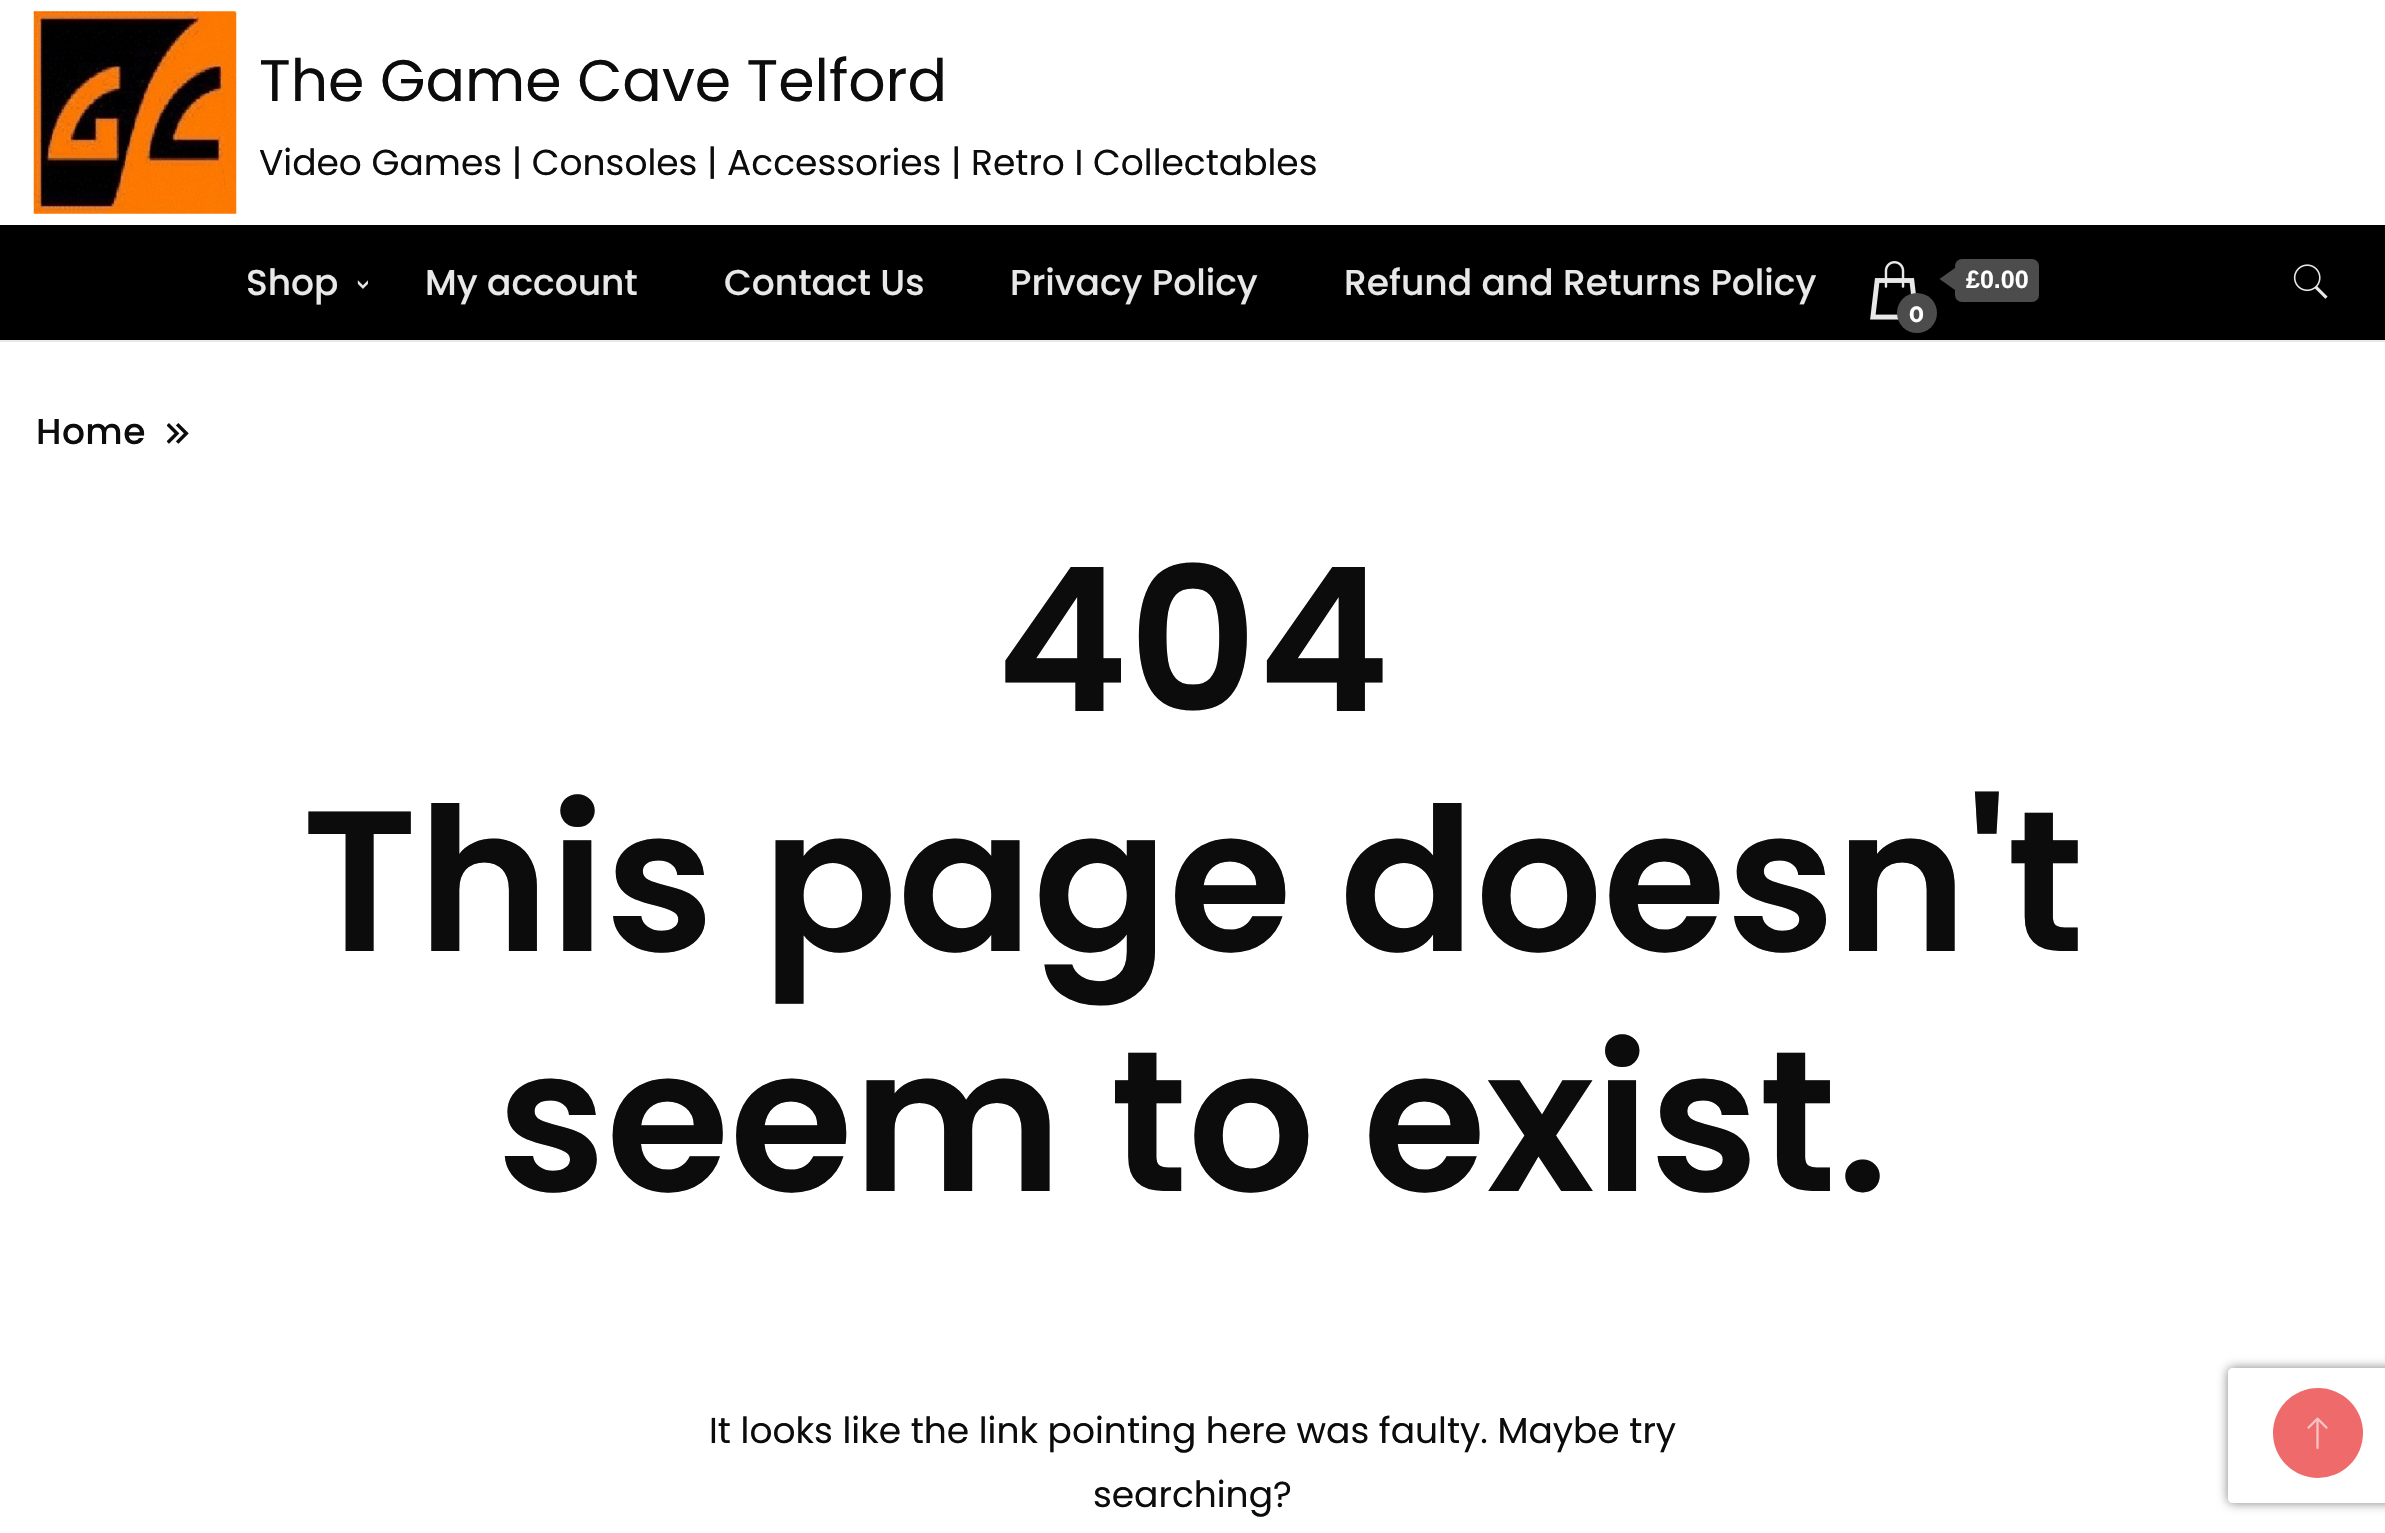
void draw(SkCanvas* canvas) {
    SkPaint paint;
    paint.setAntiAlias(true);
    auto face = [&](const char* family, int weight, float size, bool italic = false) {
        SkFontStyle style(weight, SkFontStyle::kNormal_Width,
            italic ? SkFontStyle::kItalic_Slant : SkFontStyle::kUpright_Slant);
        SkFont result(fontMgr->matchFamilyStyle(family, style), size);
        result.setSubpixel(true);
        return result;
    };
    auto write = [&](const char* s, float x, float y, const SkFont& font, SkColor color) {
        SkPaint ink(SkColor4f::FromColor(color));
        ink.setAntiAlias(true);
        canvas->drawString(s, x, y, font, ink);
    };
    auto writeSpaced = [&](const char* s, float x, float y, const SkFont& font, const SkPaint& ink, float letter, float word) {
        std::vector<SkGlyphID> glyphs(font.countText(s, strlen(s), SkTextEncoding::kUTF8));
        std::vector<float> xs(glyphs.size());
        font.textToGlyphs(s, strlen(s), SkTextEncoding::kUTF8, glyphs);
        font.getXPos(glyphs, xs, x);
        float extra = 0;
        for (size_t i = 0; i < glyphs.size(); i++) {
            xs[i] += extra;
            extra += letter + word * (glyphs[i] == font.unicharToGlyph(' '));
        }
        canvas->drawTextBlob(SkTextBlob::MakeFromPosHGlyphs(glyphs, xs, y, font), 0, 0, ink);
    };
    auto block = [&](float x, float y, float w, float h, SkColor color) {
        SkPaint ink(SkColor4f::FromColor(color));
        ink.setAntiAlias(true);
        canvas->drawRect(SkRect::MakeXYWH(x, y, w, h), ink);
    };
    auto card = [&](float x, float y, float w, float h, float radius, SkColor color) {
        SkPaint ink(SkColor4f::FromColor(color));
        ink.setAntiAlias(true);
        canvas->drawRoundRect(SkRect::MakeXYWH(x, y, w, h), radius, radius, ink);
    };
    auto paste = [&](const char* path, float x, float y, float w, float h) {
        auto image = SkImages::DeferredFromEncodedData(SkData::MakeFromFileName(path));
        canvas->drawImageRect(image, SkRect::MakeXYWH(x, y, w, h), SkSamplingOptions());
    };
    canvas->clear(SK_ColorWHITE);
    block(0, 340, 2385, 2, SkColorSetRGB(232, 233, 233));
    paste("pic1.png", 33, 11, 204, 203);
    auto kFont1 = face("Poppins", 400, 58.5f);
    write("The Game Cave Telford", 259, 101, kFont1, SkColorSetRGB(12, 12, 12));
    auto kFont2 = face("Poppins", 400, 36);
    write("Video Games | Consoles | Accessories | Retro I Collectables", 259, 175, kFont2, SkColorSetRGB(12, 12, 12));
    block(0, 225, 2385, 115, SK_ColorBLACK);
    auto kFont3 = face("Poppins", 500, 36);
    write("Shop", 246, 295, kFont3, SkColorSetRGB(232, 232, 232));
    auto kFont4 = face("Poppins", 500, 22);
    canvas->save();
    canvas->rotate(90, 355, 278);
    write(">", 355, 278, kFont4, SkColorSetRGB(232, 232, 232));
    canvas->restore();
    write("My account", 425, 295, kFont3, SkColorSetRGB(232, 232, 232));
    write("Contact Us", 724, 295, kFont3, SkColorSetRGB(232, 232, 232));
    write("Privacy Policy", 1010, 295, kFont3, SkColorSetRGB(232, 232, 232));
    write("Refund and Returns Policy", 1344, 295, kFont3, SkColorSetRGB(232, 232, 232));
    paste("pic2.png", 1870, 261, 46, 59);
    card(1955, 259, 84, 43, 7, SkColorSetRGB(76, 76, 76));
    paint.setColor(SkColorSetRGB(76, 76, 76));
    canvas->drawPath(SkPathBuilder().moveTo(1955, 268).lineTo(1955, 290).lineTo(1939.5f, 279).close().detach(), paint);
    auto kFont5 = face("Liberation Sans", 700, 25);
    write("£0.00", 1966, 288, kFont5, SK_ColorWHITE);
    canvas->drawCircle(1917, 313, 20, paint);
    auto kFont6 = face("Montserrat", 700, 22);
    write("0", 1909, 322, kFont6, SK_ColorWHITE);
    paste("pic3.png", 2293, 264, 35, 35);
    paint.setColor(SkColorSetRGB(12, 12, 12));
    writeSpaced("Home", 36, 444, kFont3, paint, 0.5f, 0);
    paste("pic4.png", 167, 423, 22, 21);
    auto kFont7 = face("Poppins", 600, 200);
    write("404", 996, 711, kFont7, SkColorSetRGB(12, 12, 12));
    write("This page doesn't", 302, 951, kFont7, SkColorSetRGB(12, 12, 12));
    write("seem to exist.", 497, 1191, kFont7, SkColorSetRGB(12, 12, 12));
    write("It looks like the link pointing here was faulty. Maybe try", 709, 1443, kFont2, SkColorSetRGB(12, 12, 12));
    write("searching?", 1093, 1507, kFont2, SkColorSetRGB(12, 12, 12));
    canvas->save();
    canvas->clipPath(SkPathBuilder(SkPathFillType::kEvenOdd).moveTo(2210, 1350).lineTo(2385, 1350).lineTo(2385, 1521).lineTo(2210, 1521).close().moveTo(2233, 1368).lineTo(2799, 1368).cubicTo(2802, 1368, 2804, 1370, 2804, 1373).lineTo(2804, 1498).cubicTo(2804, 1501, 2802, 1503, 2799, 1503).lineTo(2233, 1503).cubicTo(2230, 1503, 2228, 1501, 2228, 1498).lineTo(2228, 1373).cubicTo(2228, 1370, 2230, 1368, 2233, 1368).close().detach(), true);
    paint.setColor(SkColorSetRGB(128, 128, 128));
    paint.setMaskFilter(SkMaskFilter::MakeBlur(kNormal_SkBlurStyle, 5.5f));
    canvas->drawRoundRect(SkRect::MakeXYWH(2228, 1368, 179, 135), 5, 5, paint);
    paint.setMaskFilter(nullptr);
    canvas->restore();
    paint.setColor(SkColorSetRGB(239, 106, 106));
    canvas->drawCircle(2318, 1433, 45, paint);
    paste("pic5.png", 2307, 1417, 21, 32);
}
